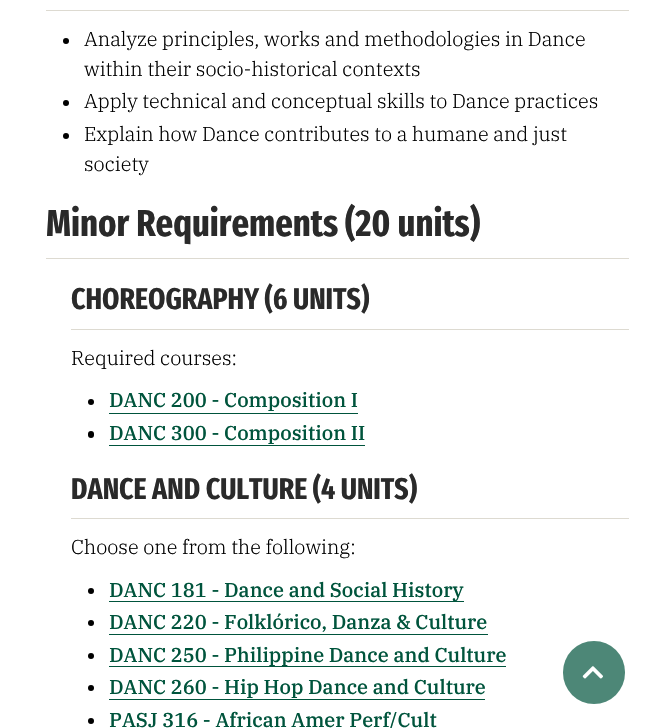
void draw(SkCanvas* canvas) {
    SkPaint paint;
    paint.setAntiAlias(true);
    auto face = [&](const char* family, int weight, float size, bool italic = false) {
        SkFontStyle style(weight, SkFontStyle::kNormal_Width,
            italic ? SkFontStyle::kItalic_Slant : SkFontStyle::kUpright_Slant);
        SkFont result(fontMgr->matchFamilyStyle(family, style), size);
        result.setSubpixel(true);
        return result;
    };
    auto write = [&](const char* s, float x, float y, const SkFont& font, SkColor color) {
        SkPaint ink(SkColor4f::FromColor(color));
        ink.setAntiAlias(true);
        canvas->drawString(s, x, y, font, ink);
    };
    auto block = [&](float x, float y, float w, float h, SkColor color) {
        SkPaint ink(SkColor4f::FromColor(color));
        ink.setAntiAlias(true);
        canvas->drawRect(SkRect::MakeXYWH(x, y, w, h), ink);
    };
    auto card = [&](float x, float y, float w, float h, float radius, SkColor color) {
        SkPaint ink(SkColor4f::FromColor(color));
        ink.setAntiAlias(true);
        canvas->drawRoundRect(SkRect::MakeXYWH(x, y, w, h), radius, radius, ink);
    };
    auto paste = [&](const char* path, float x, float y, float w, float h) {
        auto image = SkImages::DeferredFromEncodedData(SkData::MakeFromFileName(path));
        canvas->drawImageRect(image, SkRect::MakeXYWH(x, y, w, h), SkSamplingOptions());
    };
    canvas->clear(SK_ColorWHITE);
    block(46, 10, 583, 1, SkColorSetRGB(221, 218, 209));
    paint.setColor(SK_ColorBLACK);
    canvas->drawCircle(66, 41, 3, paint);
    auto kFont1 = face("IBM Plex Serif", 300, 20);
    write("Analyze principles, works and methodologies in Dance", 84, 46, kFont1, SK_ColorBLACK);
    write("within their socio-historical contexts", 84, 76, kFont1, SK_ColorBLACK);
    canvas->drawCircle(66, 103, 3, paint);
    write("Apply technical and conceptual skills to Dance practices", 84, 108, kFont1, SK_ColorBLACK);
    canvas->drawCircle(66, 136, 3, paint);
    write("Explain how Dance contributes to a humane and just", 84, 141, kFont1, SK_ColorBLACK);
    write("society", 84, 171, kFont1, SK_ColorBLACK);
    auto kFont2 = face("Fira Sans Extra Condensed", 700, 37.5f);
    write("Minor Requirements (20 units)", 46, 236, kFont2, SkColorSetRGB(42, 42, 42));
    block(46, 258, 583, 1, SkColorSetRGB(221, 218, 209));
    auto kFont3 = face("Fira Sans Extra Condensed", 700, 30);
    write("CHOREOGRAPHY (6 UNITS)", 71, 309, kFont3, SkColorSetRGB(42, 42, 42));
    block(71, 329, 558, 1, SkColorSetRGB(221, 218, 209));
    write("Required courses:", 71, 365, kFont1, SK_ColorBLACK);
    canvas->drawCircle(91, 402, 3, paint);
    auto kFont4 = face("IBM Plex Serif", 500, 20);
    write("DANC 200 - Composition I", 109, 407, kFont4, SkColorSetRGB(0, 84, 60));
    block(109, 413, 249, 1, SkColorSetRGB(0, 84, 60));
    card(88, 431, 6, 7, 3, SK_ColorBLACK);
    write("DANC 300 - Composition II", 109, 440, kFont4, SkColorSetRGB(0, 84, 60));
    block(109, 445, 256, 1, SkColorSetRGB(0, 84, 60));
    write("DANCE AND CULTURE (4 UNITS)", 71, 499, kFont3, SkColorSetRGB(42, 42, 42));
    block(71, 518, 558, 1, SkColorSetRGB(221, 218, 209));
    write("Choose one from the following:", 71, 554, kFont1, SK_ColorBLACK);
    canvas->drawCircle(91, 591, 3, paint);
    block(109, 601, 355, 1, SkColorSetRGB(0, 84, 60));
    write("DANC 181 - Dance and Social History", 109, 597, kFont4, SkColorSetRGB(0, 84, 60));
    canvas->drawCircle(91, 623, 3, paint);
    write("DANC 220 - Folklórico, Danza & Culture", 109, 629, kFont4, SkColorSetRGB(0, 84, 60));
    block(109, 634, 379, 1, SkColorSetRGB(0, 84, 60));
    canvas->drawCircle(91, 656, 3, paint);
    write("DANC 250 - Philippine Dance and Culture", 109, 662, kFont4, SkColorSetRGB(0, 84, 60));
    block(109, 666, 397, 1, SkColorSetRGB(0, 84, 60));
    canvas->drawCircle(91, 688, 3, paint);
    write("DANC 260 - Hip Hop Dance and Culture", 109, 694, kFont4, SkColorSetRGB(0, 84, 60));
    block(109, 699, 376, 1, SkColorSetRGB(0, 84, 60));
    canvas->drawCircle(91, 721, 3, paint);
    write("PASJ 316 - African Amer Perf/Cult", 109, 727, kFont4, SkColorSetRGB(0, 84, 60));
    card(563, 641, 62, 63, 31, SkColorSetRGB(77, 135, 119));
    paste("pic1.png", 582, 666, 21, 13);
}
